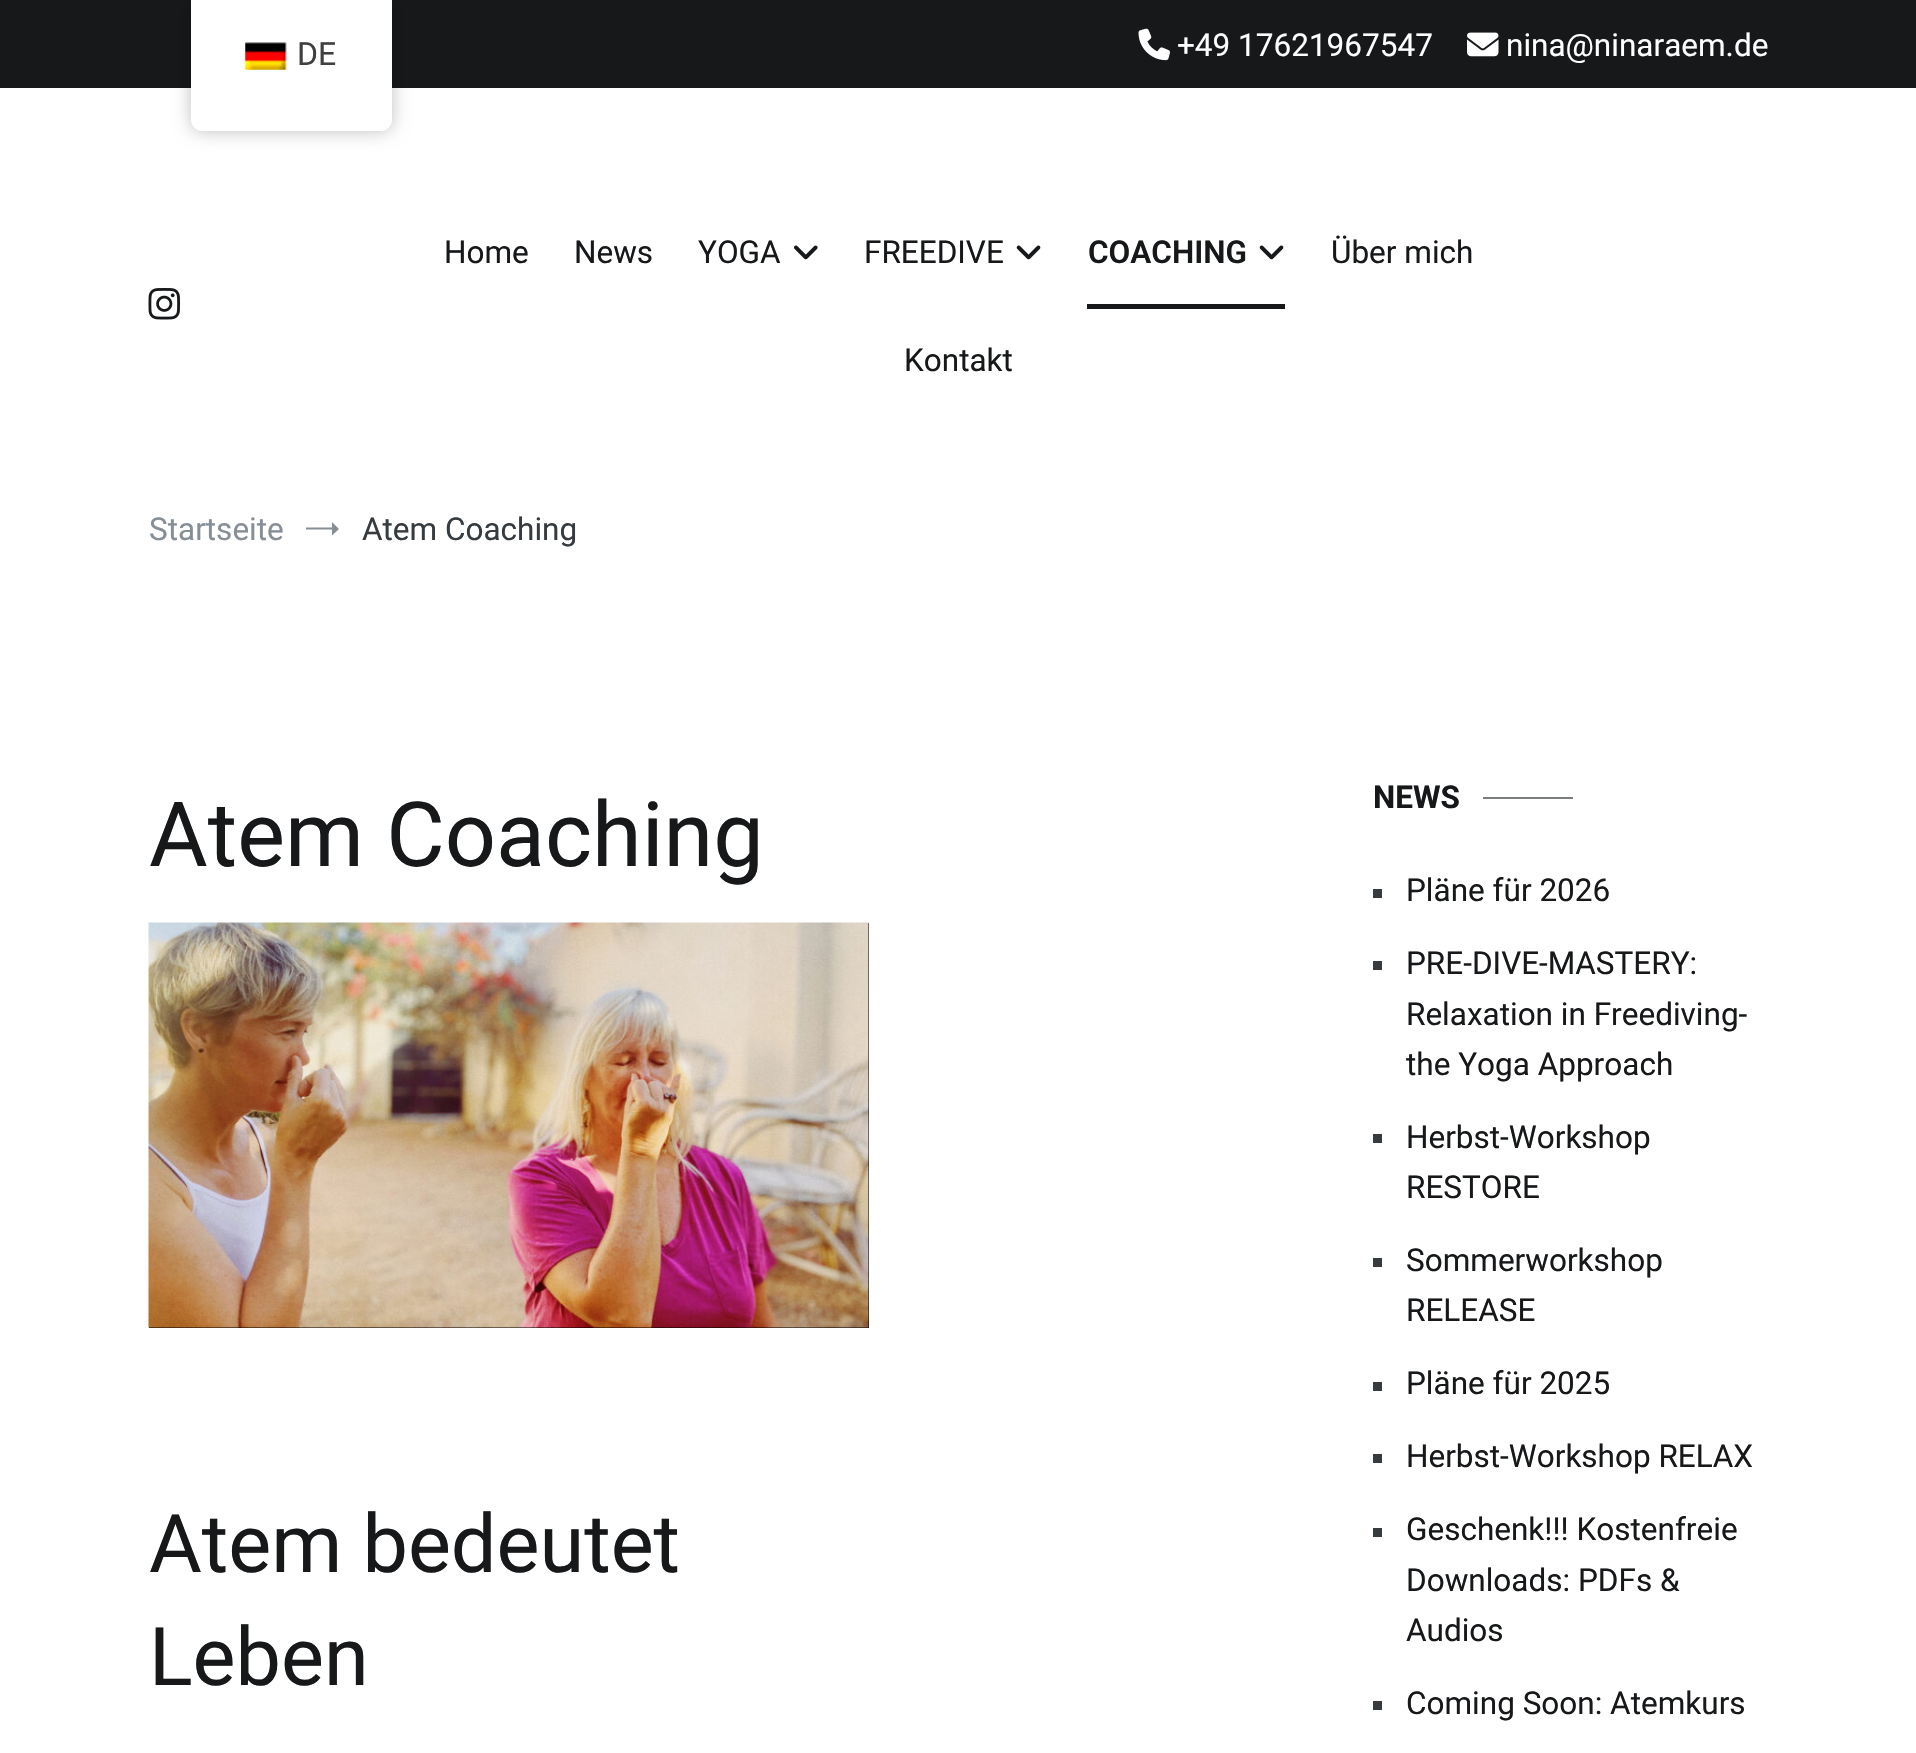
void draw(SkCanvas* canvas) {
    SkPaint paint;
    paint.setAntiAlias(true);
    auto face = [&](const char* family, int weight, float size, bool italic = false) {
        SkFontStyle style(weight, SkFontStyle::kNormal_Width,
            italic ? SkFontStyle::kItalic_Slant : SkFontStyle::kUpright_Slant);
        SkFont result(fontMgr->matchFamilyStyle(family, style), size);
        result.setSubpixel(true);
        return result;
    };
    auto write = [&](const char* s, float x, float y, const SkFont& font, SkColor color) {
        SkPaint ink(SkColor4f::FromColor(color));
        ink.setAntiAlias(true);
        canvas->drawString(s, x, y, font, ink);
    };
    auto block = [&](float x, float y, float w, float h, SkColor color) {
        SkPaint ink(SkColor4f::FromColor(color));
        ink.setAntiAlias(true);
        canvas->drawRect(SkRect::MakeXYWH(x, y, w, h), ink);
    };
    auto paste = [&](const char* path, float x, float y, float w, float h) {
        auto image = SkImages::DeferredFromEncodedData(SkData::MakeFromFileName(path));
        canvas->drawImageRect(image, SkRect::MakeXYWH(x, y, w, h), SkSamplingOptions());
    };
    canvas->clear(SK_ColorWHITE);
    block(0, 0, 1916, 88, SkColorSetRGB(22, 24, 26));
    paste("pic1.png", 1138, 28, 32, 33);
    auto kFont1 = face("Roboto", 400, 31.5f);
    write("+49 17621967547", 1177, 56, kFont1, SK_ColorWHITE);
    paste("pic2.png", 1467, 32, 32, 25);
    write("nina@ninaraem.de", 1506, 56, kFont1, SK_ColorWHITE);
    paste("pic3.png", 148, 288, 32, 32);
    write("Home", 444, 263, kFont1, SkColorSetRGB(22, 24, 26));
    write("News", 574, 263, kFont1, SkColorSetRGB(22, 24, 26));
    write("YOGA", 698, 263, kFont1, SkColorSetRGB(22, 24, 26));
    paste("pic4.png", 794, 245, 24, 15);
    write("FREEDIVE", 864, 263, kFont1, SkColorSetRGB(22, 24, 26));
    paste("pic5.png", 1016, 245, 25, 15);
    block(1087, 304, 198, 5, SkColorSetRGB(22, 24, 26));
    auto kFont2 = face("Roboto", 600, 31.5f);
    write("COACHING", 1088, 263, kFont2, SkColorSetRGB(22, 24, 26));
    paste("pic5.png", 1259, 245, 25, 15);
    write("Über mich", 1331, 263, kFont1, SkColorSetRGB(22, 24, 26));
    write("Kontakt", 904, 371, kFont1, SkColorSetRGB(22, 24, 26));
    write("Startseite", 149, 540, kFont1, SkColorSetRGB(134, 142, 150));
    paint.setColor(SkColorSetRGB(134, 142, 150));
    canvas->drawPath(SkPathBuilder().moveTo(339, 529).lineTo(332, 535.5f).lineTo(332, 522).close().moveTo(306, 527.5f).lineTo(332.5f, 527.5f).lineTo(332.5f, 529.5f).lineTo(306, 529.5f).close().detach(), paint);
    write("Atem Coaching", 362, 540, kFont1, SkColorSetRGB(54, 59, 64));
    auto kFont3 = face("Roboto", 400, 90);
    write("Atem Coaching", 149, 866, kFont3, SkColorSetRGB(22, 24, 26));
    block(149, 923, 720, 405, SK_ColorBLACK);
    paste("pic6.png", 148, 922, 721, 406);
    auto kFont4 = face("Roboto", 400, 81);
    write("Atem bedeutet", 149, 1572, kFont4, SkColorSetRGB(22, 24, 26));
    write("Leben", 149, 1685, kFont4, SkColorSetRGB(22, 24, 26));
    auto kFont5 = face("Roboto", 700, 31.5f);
    write("NEWS", 1373, 808, kFont5, SkColorSetRGB(22, 24, 26));
    block(1483, 797, 90, 2, SkColorSetRGB(122, 126, 127));
    block(1373, 889, 9, 9, SkColorSetRGB(54, 59, 64));
    write("Pläne für 2026", 1406, 901, kFont1, SkColorSetRGB(22, 24, 26));
    block(1373, 961, 9, 9, SkColorSetRGB(54, 59, 64));
    write("PRE-DIVE-MASTERY:", 1406, 974, kFont1, SkColorSetRGB(22, 24, 26));
    write("Relaxation in Freediving-", 1406, 1025, kFont1, SkColorSetRGB(22, 24, 26));
    write("the Yoga Approach", 1406, 1075, kFont1, SkColorSetRGB(22, 24, 26));
    block(1373, 1134, 9, 9, SkColorSetRGB(54, 59, 64));
    write("Herbst-Workshop", 1406, 1148, kFont1, SkColorSetRGB(22, 24, 26));
    write("RESTORE", 1406, 1198, kFont1, SkColorSetRGB(22, 24, 26));
    block(1373, 1258, 9, 9, SkColorSetRGB(54, 59, 64));
    write("Sommerworkshop", 1406, 1271, kFont1, SkColorSetRGB(22, 24, 26));
    write("RELEASE", 1406, 1321, kFont1, SkColorSetRGB(22, 24, 26));
    block(1373, 1382, 9, 9, SkColorSetRGB(54, 59, 64));
    write("Pläne für 2025", 1406, 1394, kFont1, SkColorSetRGB(22, 24, 26));
    block(1373, 1454, 9, 9, SkColorSetRGB(54, 59, 64));
    write("Herbst-Workshop RELAX", 1406, 1467, kFont1, SkColorSetRGB(22, 24, 26));
    block(1373, 1528, 9, 9, SkColorSetRGB(54, 59, 64));
    write("Geschenk!!! Kostenfreie", 1406, 1540, kFont1, SkColorSetRGB(22, 24, 26));
    write("Downloads: PDFs &", 1406, 1591, kFont1, SkColorSetRGB(22, 24, 26));
    write("Audios", 1406, 1641, kFont1, SkColorSetRGB(22, 24, 26));
    block(1373, 1701, 9, 9, SkColorSetRGB(54, 59, 64));
    write("Coming Soon: Atemkurs", 1406, 1714, kFont1, SkColorSetRGB(22, 24, 26));
    paint.setColor(SkColorSetARGB(64, 0, 0, 0));
    paint.setMaskFilter(SkMaskFilter::MakeBlur(kNormal_SkBlurStyle, 9));
    canvas->drawRoundRect(SkRect::MakeXYWH(191, 0, 201, 131), 11, 11, paint);
    paint.setMaskFilter(nullptr);
    paint.setColor(SK_ColorWHITE);
    canvas->drawPath(SkPathBuilder().moveTo(191, 0).lineTo(392, 0).lineTo(392, 120).cubicTo(392, 126, 387, 131, 381, 131).lineTo(202, 131).cubicTo(196, 131, 191, 126, 191, 120).close().detach(), paint);
    paste("pic7.png", 245, 42, 42, 28);
    auto kFont6 = face("Roboto", 400, 32);
    write("DE", 297, 65, kFont6, SkColorSetRGB(64, 64, 64));
}
